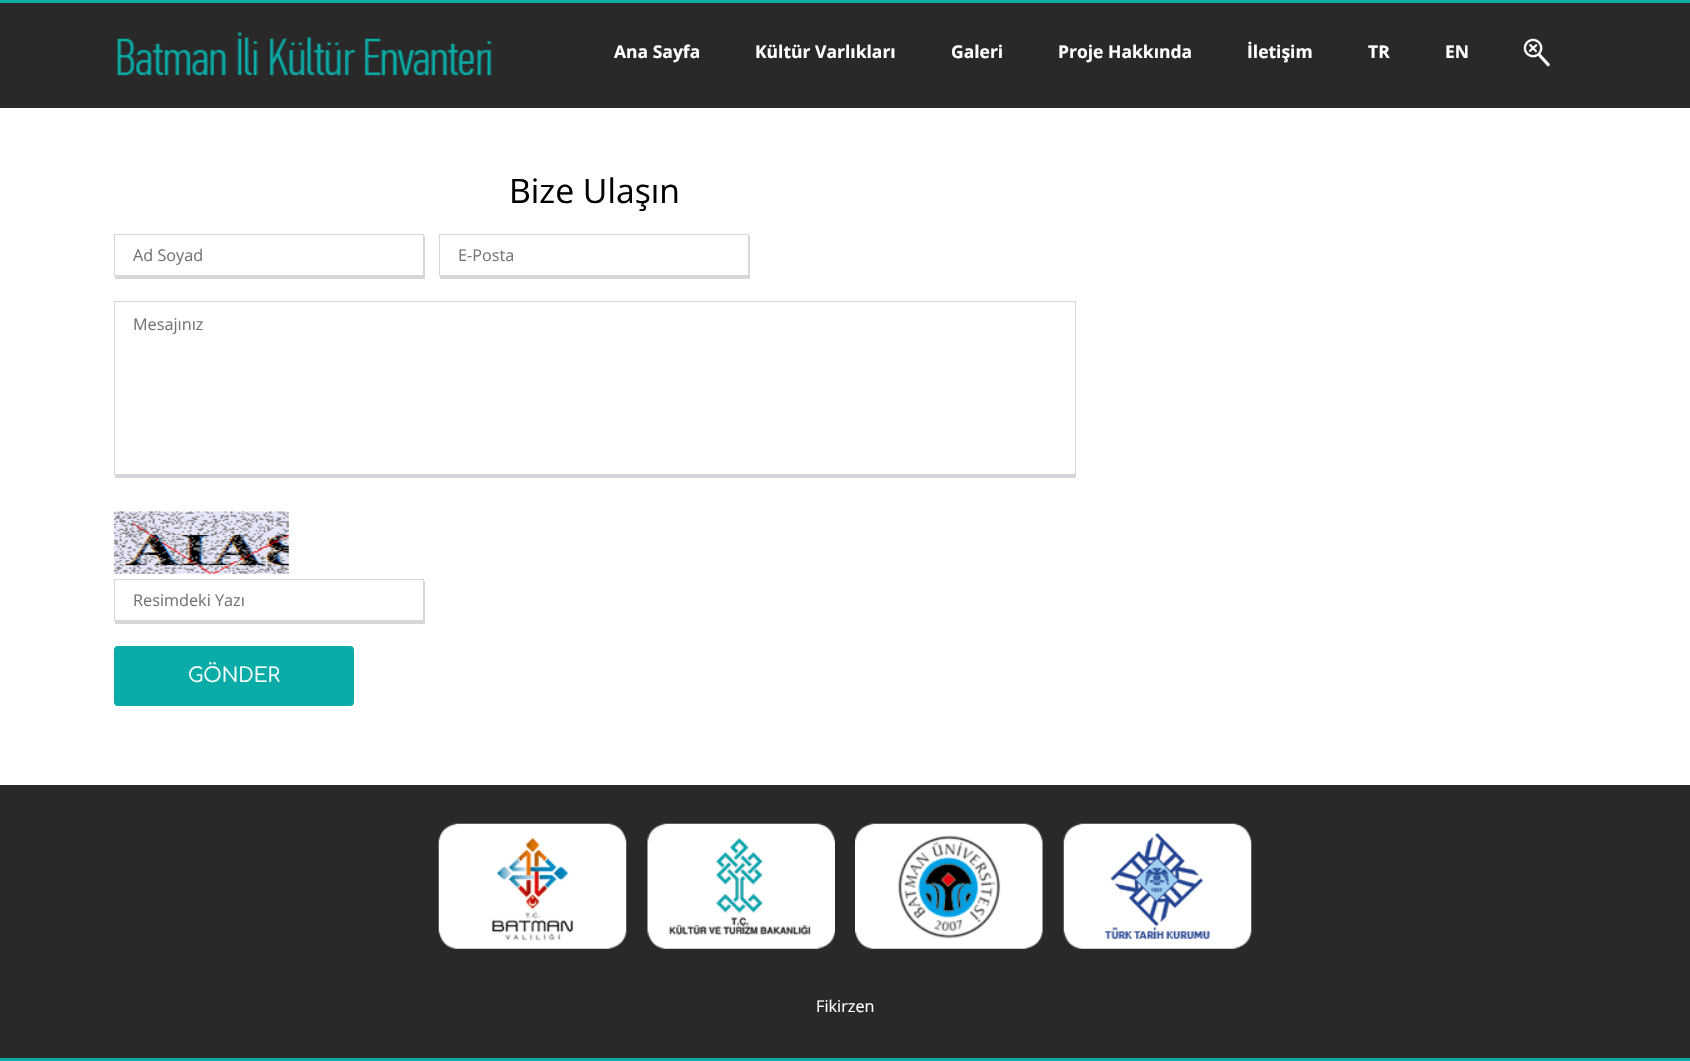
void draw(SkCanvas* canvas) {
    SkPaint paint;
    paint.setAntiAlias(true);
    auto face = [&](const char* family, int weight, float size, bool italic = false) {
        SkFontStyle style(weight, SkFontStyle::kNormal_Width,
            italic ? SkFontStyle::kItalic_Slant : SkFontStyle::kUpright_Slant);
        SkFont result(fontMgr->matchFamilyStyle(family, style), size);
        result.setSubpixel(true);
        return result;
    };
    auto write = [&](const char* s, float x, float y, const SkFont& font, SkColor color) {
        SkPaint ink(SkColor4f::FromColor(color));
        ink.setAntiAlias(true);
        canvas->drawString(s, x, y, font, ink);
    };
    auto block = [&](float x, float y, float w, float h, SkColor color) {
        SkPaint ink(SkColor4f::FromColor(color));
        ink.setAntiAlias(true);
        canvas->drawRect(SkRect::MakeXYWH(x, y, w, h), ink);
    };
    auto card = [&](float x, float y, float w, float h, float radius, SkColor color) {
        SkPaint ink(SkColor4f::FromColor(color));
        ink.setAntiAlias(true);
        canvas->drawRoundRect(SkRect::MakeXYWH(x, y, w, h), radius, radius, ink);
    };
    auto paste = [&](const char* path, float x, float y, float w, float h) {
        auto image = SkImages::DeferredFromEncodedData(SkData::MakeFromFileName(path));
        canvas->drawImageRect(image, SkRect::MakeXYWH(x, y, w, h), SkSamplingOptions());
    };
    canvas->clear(SK_ColorWHITE);
    block(0, 3, 1690, 105, SkColorSetRGB(41, 41, 41));
    block(0, 0, 1690, 3, SkColorSetRGB(10, 172, 167));
    paste("pic1.png", 117, 32, 375, 44);
    auto kFont1 = face("Open Sans", 700, 17.5f);
    write("Ana Sayfa", 614, 58, kFont1, SK_ColorWHITE);
    write("Kültür Varlıkları", 755, 58, kFont1, SK_ColorWHITE);
    write("Galeri", 951, 58, kFont1, SK_ColorWHITE);
    write("Proje Hakkında", 1058, 58, kFont1, SK_ColorWHITE);
    write("İletişim", 1247, 58, kFont1, SK_ColorWHITE);
    write("TR", 1368, 58, kFont1, SK_ColorWHITE);
    write("EN", 1445, 58, kFont1, SK_ColorWHITE);
    paste("pic2.png", 1523, 38, 27, 29);
    auto kFont2 = face("Open Sans", 400, 33.75f);
    write("Bize Ulaşın", 509, 203, kFont2, SK_ColorBLACK);
    paint.setColor(SkColorSetRGB(214, 215, 219));
    canvas->drawPath(SkPathBuilder().moveTo(115, 276).lineTo(115, 279).lineTo(425, 279).lineTo(425, 236).lineTo(424, 236).lineTo(424, 276).close().detach(), paint);
    paint.setStyle(SkPaint::kStroke_Style);
    paint.setStrokeWidth(1);
    canvas->drawRect(SkRect::MakeXYWH(114.5f, 234.5f, 309, 41), paint);
    auto kFont3 = face("Open Sans", 400, 16.25f);
    write("Ad Soyad", 133, 261, kFont3, SkColorSetRGB(117, 117, 117));
    paint.setStyle(SkPaint::kFill_Style);
    canvas->drawPath(SkPathBuilder().moveTo(440, 276).lineTo(440, 279).lineTo(750, 279).lineTo(750, 236).lineTo(749, 236).lineTo(749, 276).close().detach(), paint);
    paint.setStyle(SkPaint::kStroke_Style);
    canvas->drawRect(SkRect::MakeXYWH(439.5f, 234.5f, 309, 41), paint);
    write("E-Posta", 458, 261, kFont3, SkColorSetRGB(117, 117, 117));
    canvas->save();
    canvas->clipRect(SkRect::MakeXYWH(114, 234, 962, 472));
    paint.setStyle(SkPaint::kFill_Style);
    canvas->drawPath(SkPathBuilder().moveTo(115, 475).lineTo(115, 478).lineTo(1078, 478).lineTo(1078, 304).lineTo(1076, 304).lineTo(1076, 475).close().detach(), paint);
    canvas->restore();
    paint.setStyle(SkPaint::kStroke_Style);
    canvas->drawRect(SkRect::MakeXYWH(114.5f, 301.5f, 961, 173), paint);
    write("Mesajınız", 133, 330, kFont3, SkColorSetRGB(117, 117, 117));
    paste("pic3.png", 113, 511, 176, 63);
    paint.setStyle(SkPaint::kFill_Style);
    canvas->drawPath(SkPathBuilder().moveTo(115, 621).lineTo(115, 624).lineTo(425, 624).lineTo(425, 581).lineTo(424, 581).lineTo(424, 621).close().detach(), paint);
    paint.setStyle(SkPaint::kStroke_Style);
    canvas->drawRect(SkRect::MakeXYWH(114.5f, 579.5f, 309, 41), paint);
    write("Resimdeki Yazı", 133, 606, kFont3, SkColorSetRGB(117, 117, 117));
    card(114, 646, 240, 60, 4, SkColorSetRGB(10, 172, 167));
    auto kFont4 = face("Comfortaa", 400, 20);
    write("GÖNDER", 188, 682, kFont4, SK_ColorWHITE);
    block(0, 785, 1690, 273, SkColorSetRGB(41, 41, 41));
    block(0, 1058, 1690, 3, SkColorSetRGB(10, 172, 167));
    paste("pic4.png", 438, 823, 189, 126);
    paste("pic5.png", 647, 823, 188, 126);
    paste("pic6.png", 855, 823, 188, 126);
    paste("pic7.png", 1063, 823, 189, 126);
    write("Fikirzen", 816, 1012, kFont3, SK_ColorWHITE);
}
